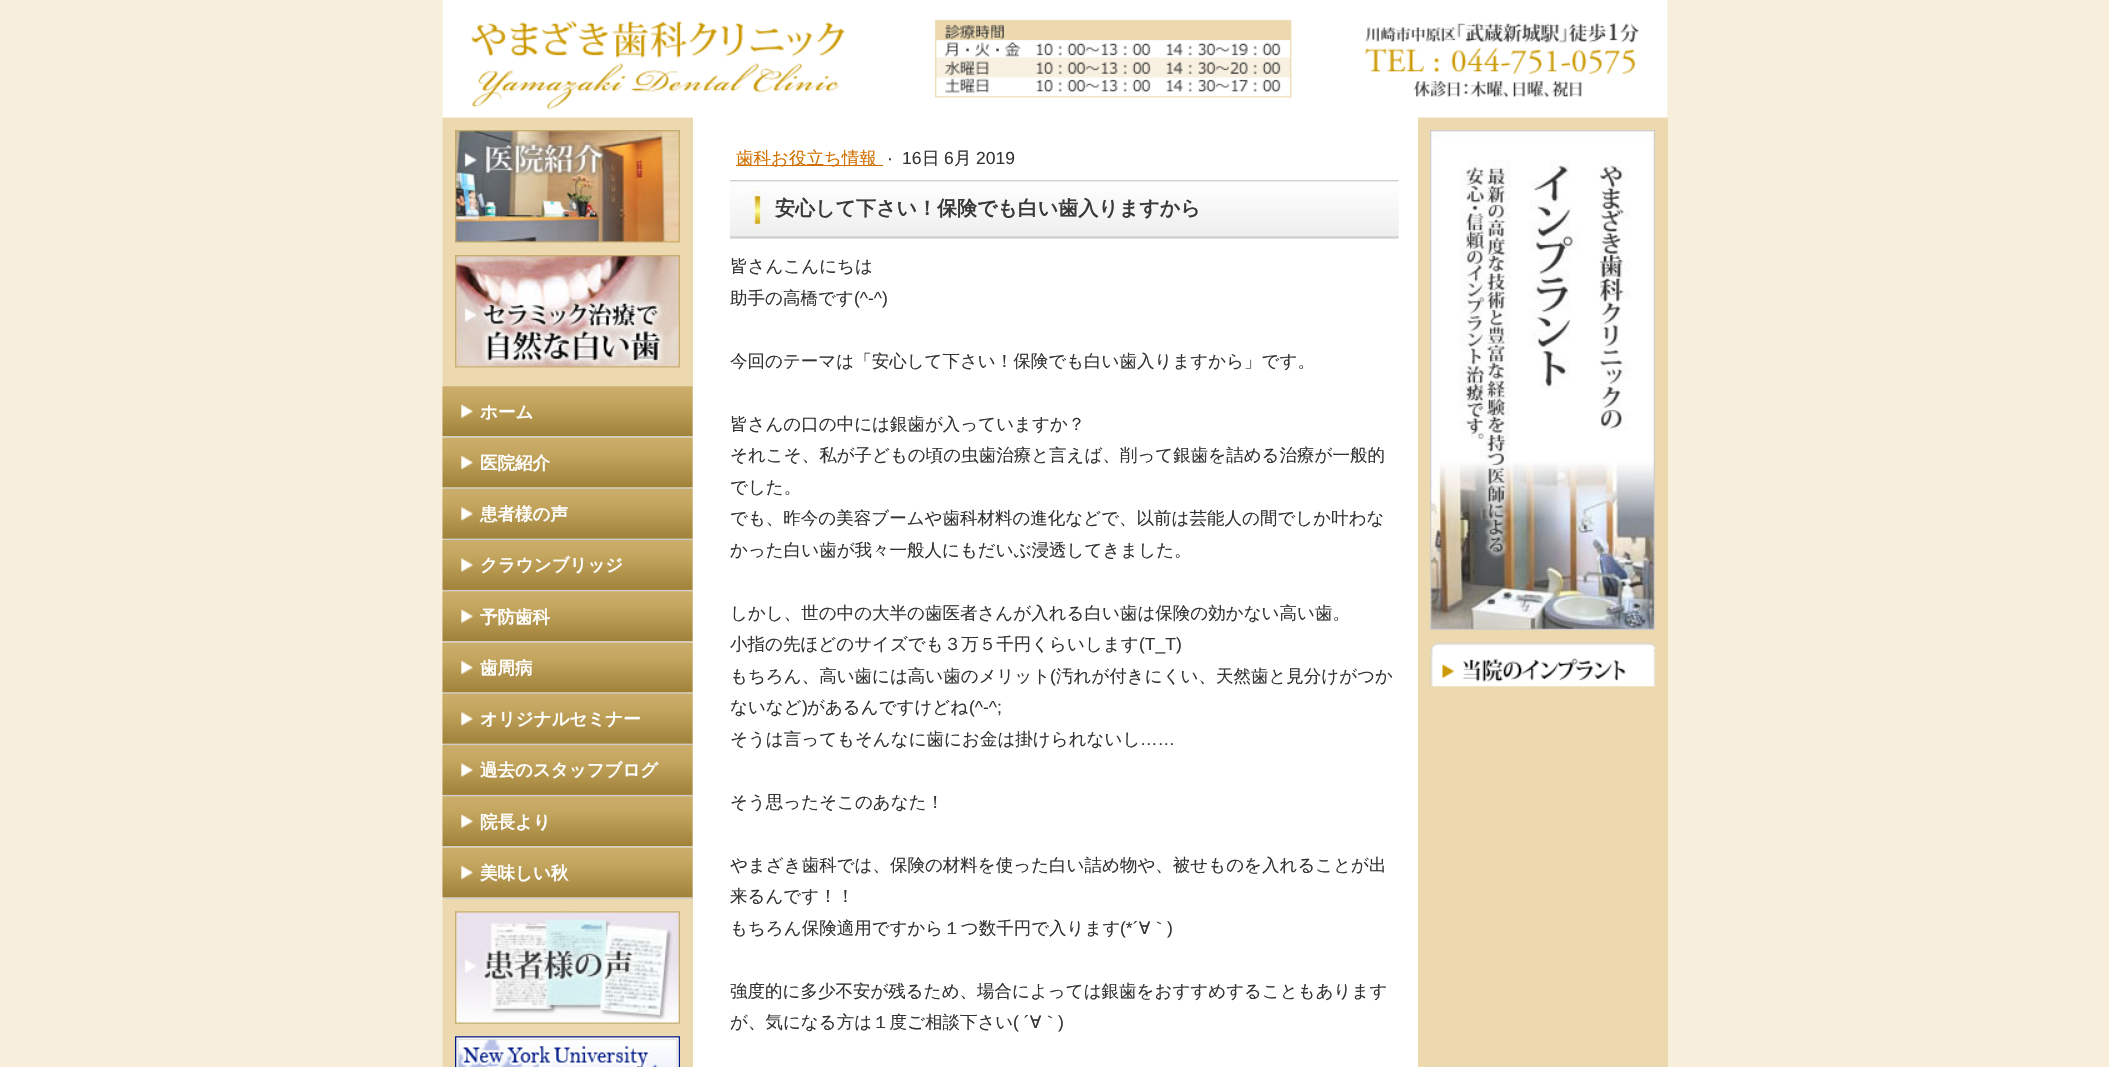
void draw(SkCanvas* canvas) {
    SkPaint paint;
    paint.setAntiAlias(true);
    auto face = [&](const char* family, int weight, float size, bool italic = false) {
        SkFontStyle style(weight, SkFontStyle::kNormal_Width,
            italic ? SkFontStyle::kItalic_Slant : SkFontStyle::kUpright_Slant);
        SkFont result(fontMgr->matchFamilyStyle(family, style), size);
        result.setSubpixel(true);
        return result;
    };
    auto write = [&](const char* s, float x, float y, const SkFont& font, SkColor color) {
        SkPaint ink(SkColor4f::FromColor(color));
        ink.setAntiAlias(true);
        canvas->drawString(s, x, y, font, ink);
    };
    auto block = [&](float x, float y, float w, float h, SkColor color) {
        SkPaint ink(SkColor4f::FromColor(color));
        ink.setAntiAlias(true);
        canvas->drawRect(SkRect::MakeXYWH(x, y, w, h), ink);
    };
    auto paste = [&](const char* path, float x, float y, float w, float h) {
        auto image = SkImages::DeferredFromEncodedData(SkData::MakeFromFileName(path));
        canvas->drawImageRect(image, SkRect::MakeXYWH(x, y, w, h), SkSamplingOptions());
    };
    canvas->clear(SkColorSetRGB(247, 238, 219));
    paste("pic1.png", 442, 0, 1226, 1067);
    paste("pic2.png", 442, 0, 1226, 118);
    block(692, 118, 1, 949, SkColorSetRGB(236, 217, 176));
    paste("pic3.png", 455, 130, 225, 113);
    paste("pic4.png", 455, 255, 225, 113);
    paste("pic5.png", 442, 386, 251, 52);
    block(443, 436, 250, 1, SkColorSetRGB(204, 204, 204));
    auto kFont1 = face("WenQuanYi Zen Hei", 700, 17.5f);
    write("ホーム", 480, 418, kFont1, SK_ColorWHITE);
    paste("pic6.png", 442, 437, 251, 52);
    block(443, 488, 250, 1, SkColorSetRGB(204, 204, 204));
    write("医院紹介", 480, 469, kFont1, SK_ColorWHITE);
    paste("pic7.png", 442, 488, 251, 52);
    block(443, 539, 250, 1, SkColorSetRGB(204, 204, 204));
    write("患者様の声", 480, 520, kFont1, SK_ColorWHITE);
    paste("pic8.png", 442, 540, 251, 52);
    block(443, 590, 250, 1, SkColorSetRGB(204, 204, 204));
    write("クラウンブリッジ", 480, 571, kFont1, SK_ColorWHITE);
    paste("pic9.png", 442, 591, 251, 52);
    block(443, 641, 250, 1, SkColorSetRGB(204, 204, 204));
    write("予防歯科", 480, 623, kFont1, SK_ColorWHITE);
    paste("pic6.png", 442, 642, 251, 52);
    block(443, 693, 250, 1, SkColorSetRGB(204, 204, 204));
    write("歯周病", 480, 674, kFont1, SK_ColorWHITE);
    paste("pic7.png", 442, 693, 251, 52);
    block(443, 744, 250, 1, SkColorSetRGB(204, 204, 204));
    write("オリジナルセミナー", 480, 725, kFont1, SK_ColorWHITE);
    paste("pic8.png", 442, 745, 251, 52);
    block(443, 795, 250, 1, SkColorSetRGB(204, 204, 204));
    write("過去のスタッフブログ", 480, 776, kFont1, SK_ColorWHITE);
    paste("pic9.png", 442, 796, 251, 52);
    block(443, 846, 250, 1, SkColorSetRGB(204, 204, 204));
    write("院長より", 480, 828, kFont1, SK_ColorWHITE);
    paste("pic6.png", 442, 847, 251, 52);
    block(443, 898, 250, 1, SkColorSetRGB(204, 204, 204));
    write("美味しい秋", 480, 879, kFont1, SK_ColorWHITE);
    paste("pic10.png", 455, 911, 225, 113);
    paste("pic11.png", 455, 1036, 225, 31);
    block(1417, 118, 1, 949, SK_ColorWHITE);
    block(736, 165, 147, 1, SkColorSetRGB(209, 112, 0));
    auto kFont2 = face("WenQuanYi Zen Hei", 500, 17.5f);
    write("歯科お役立ち情報", 736, 164, kFont2, SkColorSetRGB(209, 112, 0));
    auto kFont3 = face("Liberation Sans", 400, 17.5f);
    write("·", 887, 164, kFont3, SkColorSetRGB(51, 51, 51));
    write("16", 902, 164, kFont3, SkColorSetRGB(51, 51, 51));
    write("日", 922, 164, kFont2, SkColorSetRGB(51, 51, 51));
    write("6", 944, 164, kFont3, SkColorSetRGB(51, 51, 51));
    write("月", 954, 164, kFont2, SkColorSetRGB(51, 51, 51));
    write("2019", 976, 164, kFont3, SkColorSetRGB(51, 51, 51));
    paste("pic12.png", 730, 180, 669, 59);
    auto kFont4 = face("WenQuanYi Zen Hei", 700, 20);
    write("安心して下さい！保険でも白い歯入りますから", 775, 215, kFont4, SkColorSetRGB(58, 58, 58));
    write("皆さんこんにちは", 730, 272, kFont2, SkColorSetRGB(51, 51, 51));
    write("助手の高橋です", 730, 304, kFont2, SkColorSetRGB(51, 51, 51));
    write("(^-^)", 854, 304, kFont3, SkColorSetRGB(51, 51, 51));
    write("今回のテーマは「安心して下さい！保険でも白い歯入りますから」です。", 730, 367, kFont2, SkColorSetRGB(51, 51, 51));
    write("皆さんの口の中には銀歯が入っていますか？", 730, 430, kFont2, SkColorSetRGB(51, 51, 51));
    write("それこそ、私が子どもの頃の虫歯治療と言えば、削って銀歯を詰める治療が一般的", 730, 461, kFont2, SkColorSetRGB(51, 51, 51));
    write("でした。", 730, 493, kFont2, SkColorSetRGB(51, 51, 51));
    write("でも、昨今の美容ブームや歯科材料の進化などで、以前は芸能人の間でしか叶わな", 730, 524, kFont2, SkColorSetRGB(51, 51, 51));
    write("かった白い歯が我々一般人にもだいぶ浸透してきました。", 730, 556, kFont2, SkColorSetRGB(51, 51, 51));
    write("しかし、世の中の大半の歯医者さんが入れる白い歯は保険の効かない高い歯。", 730, 619, kFont2, SkColorSetRGB(51, 51, 51));
    write("小指の先ほどのサイズでも３万５千円くらいします", 730, 650, kFont2, SkColorSetRGB(51, 51, 51));
    write("(T_T)", 1139, 650, kFont3, SkColorSetRGB(51, 51, 51));
    write("もちろん、高い歯には高い歯のメリット", 730, 682, kFont2, SkColorSetRGB(51, 51, 51));
    write("(", 1050, 682, kFont3, SkColorSetRGB(51, 51, 51));
    write("汚れが付きにくい、天然歯と見分けがつか", 1056, 682, kFont2, SkColorSetRGB(51, 51, 51));
    write("ないなど", 730, 713, kFont2, SkColorSetRGB(51, 51, 51));
    write(")", 802, 713, kFont3, SkColorSetRGB(51, 51, 51));
    write("があるんですけどね", 807, 713, kFont2, SkColorSetRGB(51, 51, 51));
    write("(^-^;", 969, 713, kFont3, SkColorSetRGB(51, 51, 51));
    write("そうは言ってもそんなに歯にお金は掛けられないし", 730, 745, kFont2, SkColorSetRGB(51, 51, 51));
    write("……", 1140, 745, kFont3, SkColorSetRGB(51, 51, 51));
    write("そう思ったそこのあなた！", 730, 808, kFont2, SkColorSetRGB(51, 51, 51));
    write("やまざき歯科では、保険の材料を使った白い詰め物や、被せものを入れることが出", 730, 871, kFont2, SkColorSetRGB(51, 51, 51));
    write("来るんです！！", 730, 902, kFont2, SkColorSetRGB(51, 51, 51));
    write("もちろん保険適用ですから１つ数千円で入ります", 730, 934, kFont2, SkColorSetRGB(51, 51, 51));
    write("(*´", 1120, 934, kFont3, SkColorSetRGB(51, 51, 51));
    write("∀｀", 1139, 934, kFont2, SkColorSetRGB(51, 51, 51));
    write(")", 1167, 934, kFont3, SkColorSetRGB(51, 51, 51));
    write("強度的に多少不安が残るため、場合によっては銀歯をおすすめすることもあります", 730, 997, kFont2, SkColorSetRGB(51, 51, 51));
    write("が、気になる方は１度ご相談下さい", 730, 1028, kFont2, SkColorSetRGB(51, 51, 51));
    write("( ´", 1013, 1028, kFont3, SkColorSetRGB(51, 51, 51));
    write("∀｀", 1030, 1028, kFont2, SkColorSetRGB(51, 51, 51));
    write(")", 1058, 1028, kFont3, SkColorSetRGB(51, 51, 51));
    block(1667, 118, 1, 949, SkColorSetRGB(236, 217, 176));
    paste("pic13.png", 1430, 130, 225, 500);
    paste("pic14.png", 1430, 642, 225, 45);
}
